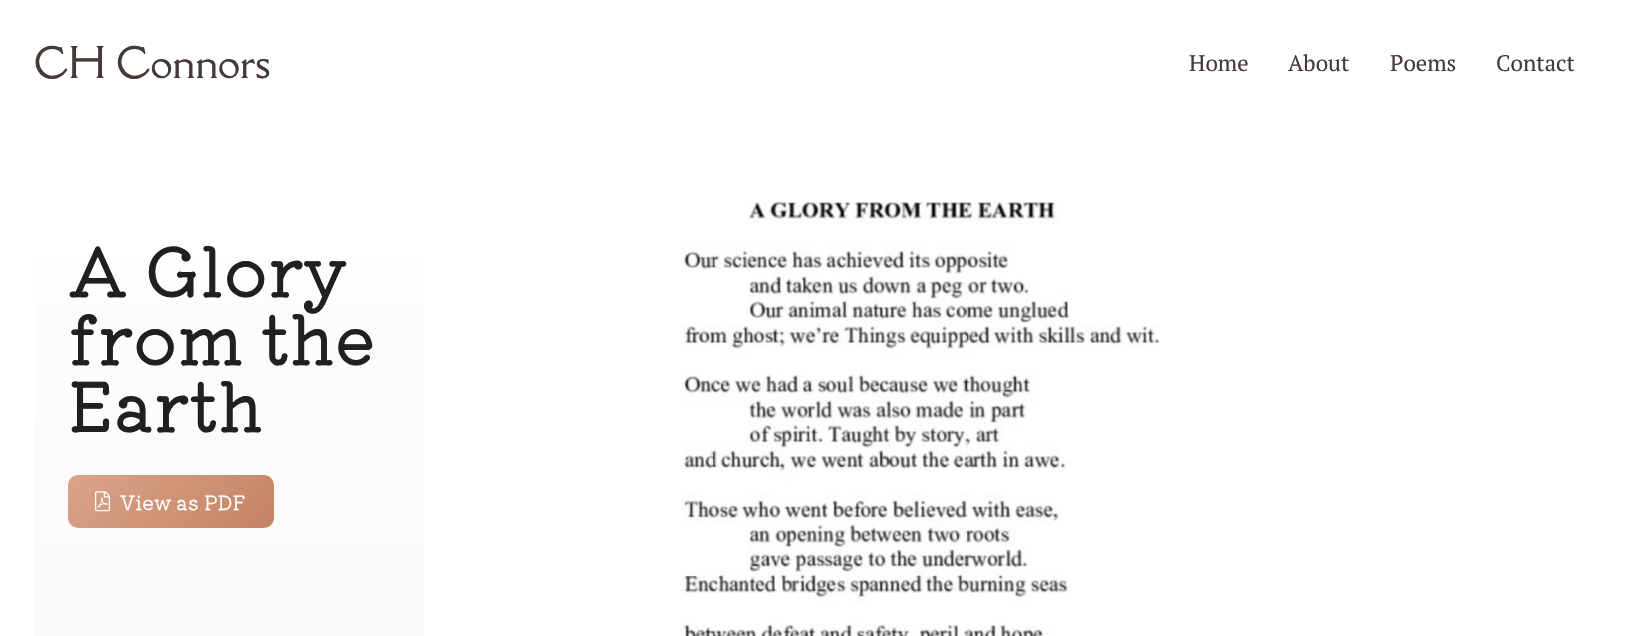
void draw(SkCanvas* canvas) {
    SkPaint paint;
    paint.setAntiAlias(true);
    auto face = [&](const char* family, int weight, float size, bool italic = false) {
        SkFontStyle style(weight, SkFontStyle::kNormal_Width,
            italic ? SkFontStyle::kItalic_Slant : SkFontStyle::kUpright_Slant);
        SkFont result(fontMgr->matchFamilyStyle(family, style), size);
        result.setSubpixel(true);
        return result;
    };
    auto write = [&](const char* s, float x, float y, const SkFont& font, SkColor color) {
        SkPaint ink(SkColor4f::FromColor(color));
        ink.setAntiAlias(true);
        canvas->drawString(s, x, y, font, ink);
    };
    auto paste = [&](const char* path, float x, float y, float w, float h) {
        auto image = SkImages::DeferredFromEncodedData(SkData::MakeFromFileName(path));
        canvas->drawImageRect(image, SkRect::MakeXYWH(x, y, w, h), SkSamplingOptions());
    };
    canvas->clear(SK_ColorWHITE);
    auto kFont1 = face("Della Respira", 400, 40);
    write("CH Connors", 34, 78, kFont1, SkColorSetRGB(66, 59, 56));
    auto kFont2 = face("PT Serif", 400, 22.5f);
    write("Home", 1189, 71, kFont2, SkColorSetRGB(66, 59, 56));
    write("About", 1288, 71, kFont2, SkColorSetRGB(66, 59, 56));
    write("Poems", 1390, 71, kFont2, SkColorSetRGB(66, 59, 56));
    write("Contact", 1496, 71, kFont2, SkColorSetRGB(66, 59, 56));
    {
        const SkColor colors[] = {SkColorSetRGB(242, 242, 240), SK_ColorWHITE};
        const float stops[] = {0, 1};
        const SkPoint ends[] = {{229, 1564}, {229, 0}};
        paint.setShader(SkGradientShader::MakeLinear(ends, colors, stops, 2, SkTileMode::kClamp));
        paint.setAlpha(255);
    }
    canvas->drawRect(SkRect::MakeXYWH(34, 261, 390, 375), paint);
    auto kFont3 = face("Kiwi Maru", 500, 67.5f);
    write("A Glory", 68, 296, kFont3, SkColorSetRGB(33, 32, 30));
    write("from the", 68, 364, kFont3, SkColorSetRGB(33, 32, 30));
    write("Earth", 68, 431, kFont3, SkColorSetRGB(33, 32, 30));
    {
        const SkColor colors[] = {SkColorSetRGB(218, 164, 138), SkColorSetRGB(196, 131, 100)};
        const float stops[] = {0, 1};
        const SkPoint ends[] = {{106, 437}, {235, 566}};
        paint.setShader(SkGradientShader::MakeLinear(ends, colors, stops, 2, SkTileMode::kClamp));
        paint.setAlpha(255);
    }
    canvas->drawRoundRect(SkRect::MakeXYWH(68, 475, 206, 53), 10, 10, paint);
    paste("pic1.png", 95, 491, 15, 21);
    auto kFont4 = face("Kiwi Maru", 400, 20);
    write("View as PDF", 120, 510, kFont4, SK_ColorWHITE);
    paste("pic2.png", 681, 201, 479, 435);
}
